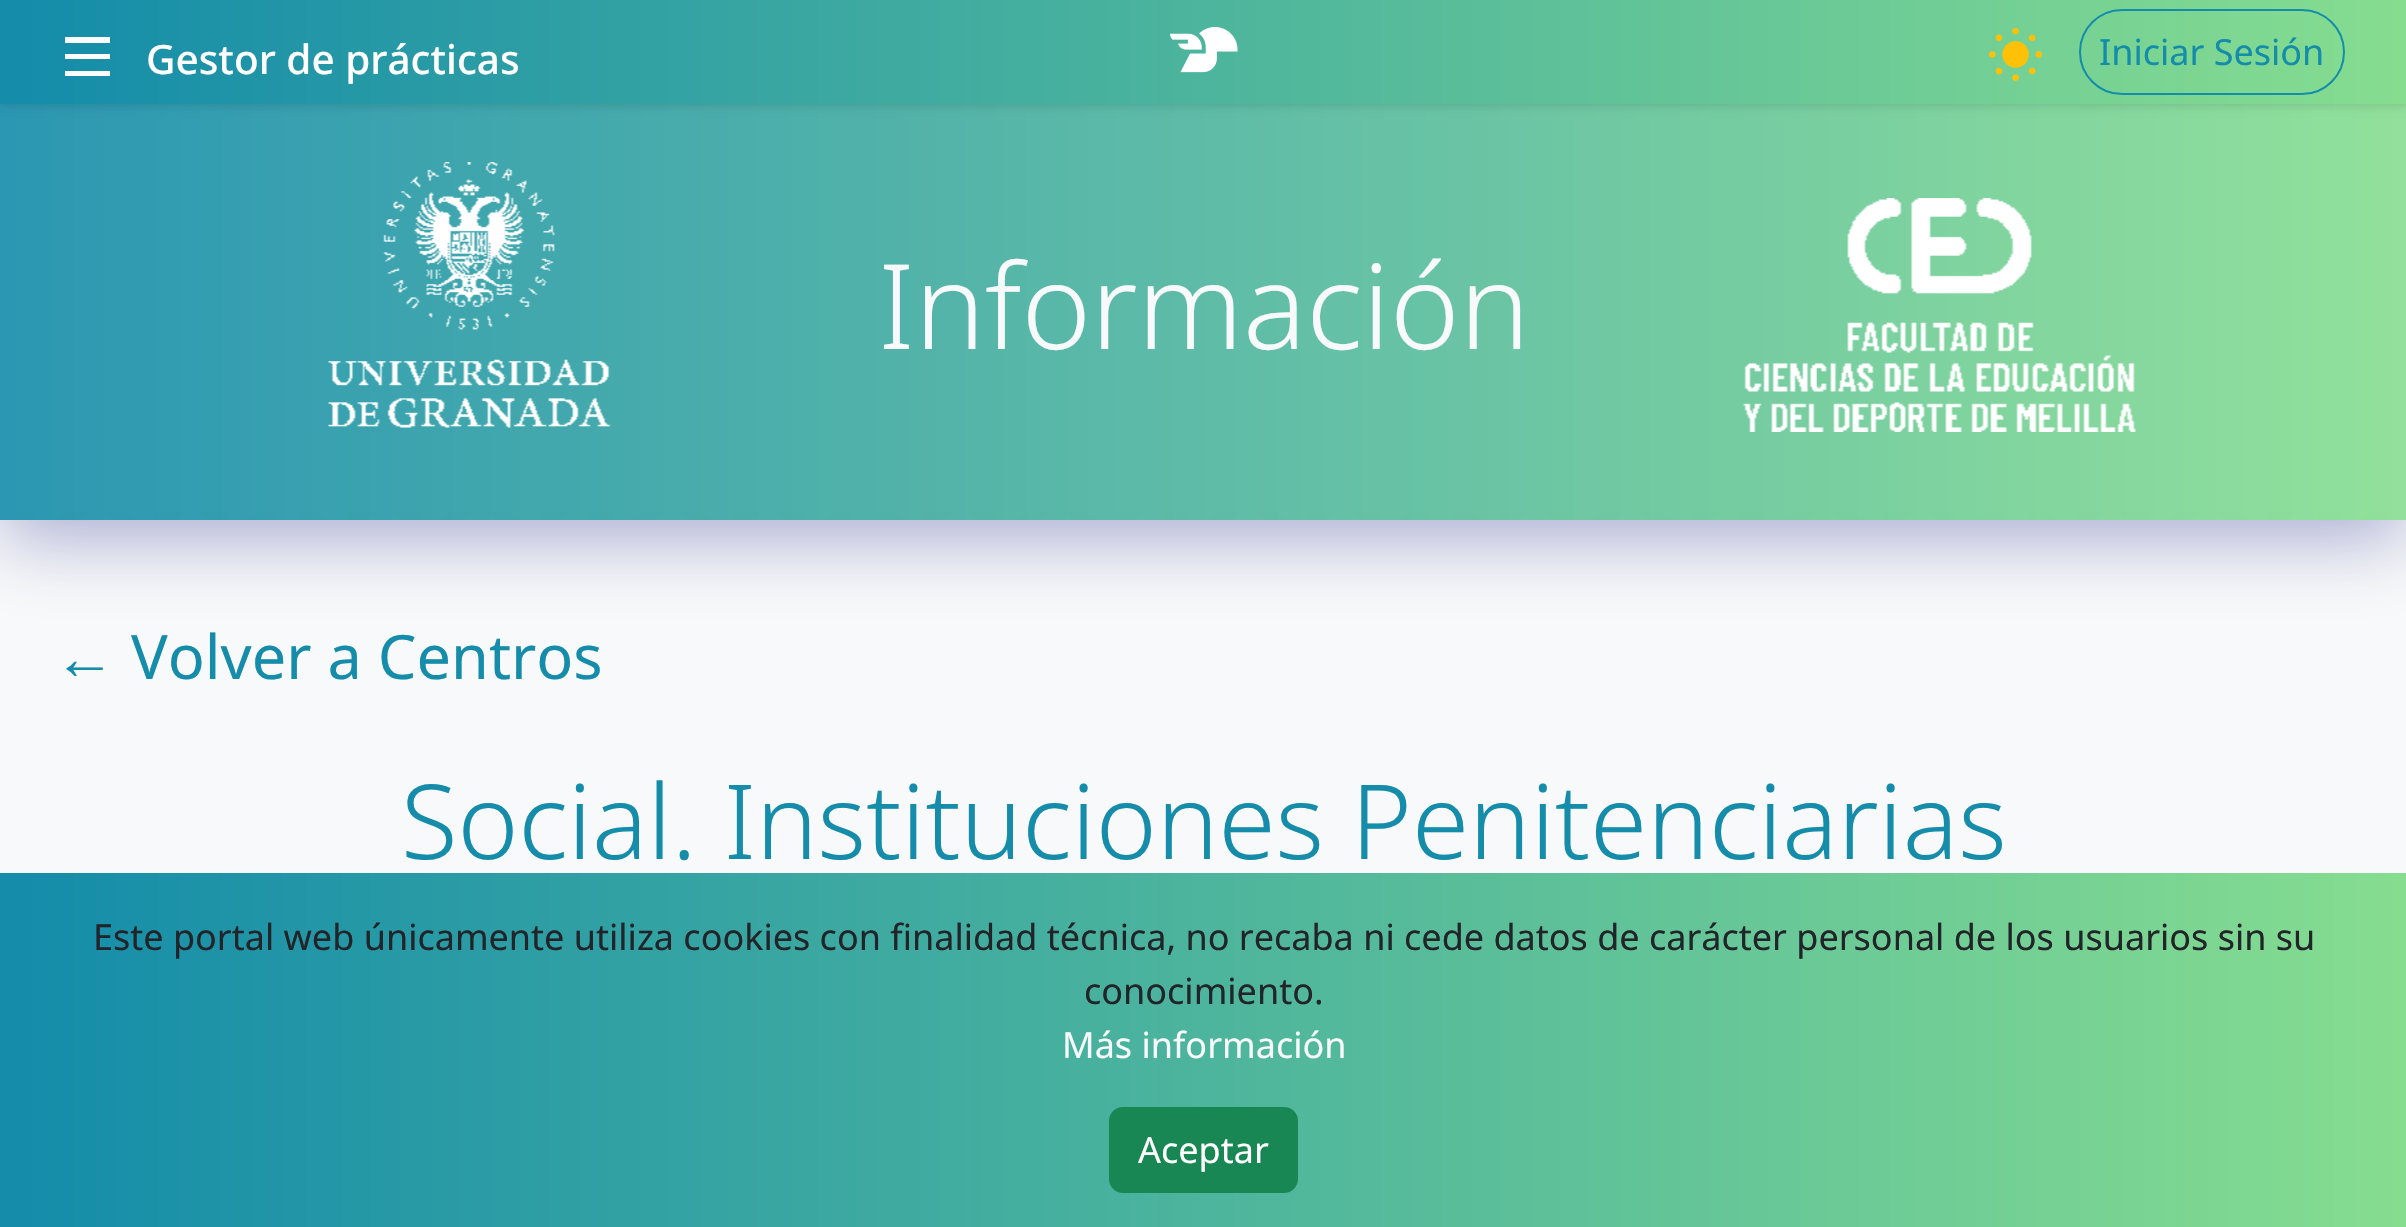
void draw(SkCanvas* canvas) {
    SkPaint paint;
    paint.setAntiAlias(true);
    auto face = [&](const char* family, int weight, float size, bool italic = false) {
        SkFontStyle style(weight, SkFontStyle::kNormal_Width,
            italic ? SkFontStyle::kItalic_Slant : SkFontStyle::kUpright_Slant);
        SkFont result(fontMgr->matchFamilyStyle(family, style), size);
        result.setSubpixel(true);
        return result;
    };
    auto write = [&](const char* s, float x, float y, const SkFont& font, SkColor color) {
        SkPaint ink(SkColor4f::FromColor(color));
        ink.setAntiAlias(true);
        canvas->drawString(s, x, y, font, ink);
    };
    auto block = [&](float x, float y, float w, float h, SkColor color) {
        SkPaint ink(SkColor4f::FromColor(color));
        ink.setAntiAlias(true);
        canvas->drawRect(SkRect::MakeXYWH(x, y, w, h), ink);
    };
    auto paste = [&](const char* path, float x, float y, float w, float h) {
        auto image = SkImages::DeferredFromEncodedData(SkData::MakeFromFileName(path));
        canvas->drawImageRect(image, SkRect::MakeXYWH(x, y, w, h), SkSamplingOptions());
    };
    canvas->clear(SK_ColorWHITE);
    paste("pic1.png", 0, 104, 2406, 416);
    paint.setColor(SkColorSetARGB(38, 0, 0, 0));
    paint.setMaskFilter(SkMaskFilter::MakeBlur(kNormal_SkBlurStyle, 18));
    canvas->drawRect(SkRect::MakeXYWH(0, 538, 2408, 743), paint);
    paint.setMaskFilter(nullptr);
    block(0, 520, 2406, 353, SkColorSetRGB(248, 249, 250));
    canvas->save();
    canvas->clipPath(SkPathBuilder(SkPathFillType::kEvenOdd).moveTo(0, 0).lineTo(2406, 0).lineTo(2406, 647).lineTo(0, 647).close().moveTo(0, 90).lineTo(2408, 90).lineTo(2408, 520).lineTo(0, 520).close().detach(), true);
    paint.setColor(SkColorSetARGB(94, 31, 38, 135));
    paint.setMaskFilter(SkMaskFilter::MakeBlur(kNormal_SkBlurStyle, 36));
    canvas->drawRect(SkRect::MakeXYWH(0, 108, 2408, 430), paint);
    paint.setMaskFilter(nullptr);
    canvas->restore();
    {
        const SkColor colors[] = {SkColorSetARGB(230, 20, 140, 170), SkColorSetARGB(230, 134, 221, 144)};
        const float stops[] = {0, 1};
        const SkPoint ends[] = {{0, 305}, {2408, 305}};
        paint.setShader(SkGradientShader::MakeLinear(ends, colors, stops, 2, SkTileMode::kClamp));
        paint.setAlpha(255);
    }
    canvas->drawRect(SkRect::MakeXYWH(0, 104, 2406, 416), paint);
    paint.setShader(nullptr);
    paint.setColor(SkColorSetARGB(31, 0, 0, 0));
    paint.setMaskFilter(SkMaskFilter::MakeBlur(kNormal_SkBlurStyle, 4.5f));
    canvas->drawRect(SkRect::MakeXYWH(0, 2, 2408, 104), paint);
    paint.setMaskFilter(nullptr);
    {
        const SkColor colors[] = {SkColorSetRGB(20, 140, 170), SkColorSetRGB(134, 221, 144)};
        const float stops[] = {0, 1};
        const SkPoint ends[] = {{0, 52}, {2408, 52}};
        paint.setShader(SkGradientShader::MakeLinear(ends, colors, stops, 2, SkTileMode::kClamp));
        paint.setAlpha(255);
    }
    canvas->drawRect(SkRect::MakeXYWH(0, 0, 2406, 104), paint);
    paint.setShader(nullptr);
    paint.setColor(SK_ColorWHITE);
    canvas->drawPath(SkPathBuilder().moveTo(65, 37).lineTo(110, 37).lineTo(110, 43).lineTo(65, 43).close().moveTo(65, 54).lineTo(110, 54).lineTo(110, 59).lineTo(65, 59).close().moveTo(65, 71).lineTo(110, 71).lineTo(110, 76).lineTo(65, 76).close().detach(), paint);
    auto kFont1 = face("Noto Sans", 500, 40.5f);
    write("Gestor de prácticas", 146, 74, kFont1, SK_ColorWHITE);
    paste("pic2.png", 1170, 27, 68, 46);
    paste("pic3.png", 1989, 27, 54, 54);
    paint.setStyle(SkPaint::kStroke_Style);
    paint.setStrokeWidth(2);
    paint.setColor(SkColorSetRGB(20, 140, 170));
    canvas->drawRoundRect(SkRect::MakeXYWH(2080, 10, 264, 84), 42, 42, paint);
    auto kFont2 = face("Noto Sans", 400, 36);
    write("Iniciar Sesión", 2099, 65, kFont2, SkColorSetRGB(20, 140, 170));
    paste("pic4.png", 328, 162, 283, 266);
    auto kFont3 = face("Noto Sans", 300, 118);
    write("Información", 878, 349, kFont3, SkColorSetRGB(248, 249, 250));
    paste("pic5.png", 1743, 198, 393, 234);
    auto kFont4 = face("Liberation Sans", 400, 61.25f);
    write("←", 54, 679, kFont4, SkColorSetRGB(20, 140, 170));
    auto kFont5 = face("Noto Sans", 400, 61.25f);
    write("Volver a Centros", 131, 679, kFont5, SkColorSetRGB(20, 140, 170));
    auto kFont6 = face("Noto Sans", 300, 103.5f);
    write("Social. Instituciones Penitenciarias", 401, 859, kFont6, SkColorSetRGB(20, 140, 170));
    paint.setStyle(SkPaint::kFill_Style);
    {
        const SkColor colors[] = {SkColorSetRGB(20, 140, 170), SkColorSetRGB(134, 221, 144)};
        const float stops[] = {0, 1};
        const SkPoint ends[] = {{0, 1051}, {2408, 1051}};
        paint.setShader(SkGradientShader::MakeLinear(ends, colors, stops, 2, SkTileMode::kClamp));
        paint.setAlpha(255);
    }
    canvas->drawRect(SkRect::MakeXYWH(0, 873, 2406, 354), paint);
    write("Este portal web únicamente utiliza cookies con finalidad técnica, no recaba ni cede datos de carácter personal de los usuarios sin su", 93, 950, kFont2, SkColorSetRGB(33, 37, 41));
    write("conocimiento.", 1084, 1004, kFont2, SkColorSetRGB(33, 37, 41));
    write("Más información", 1062, 1058, kFont2, SkColorSetRGB(248, 249, 250));
    paint.setShader(nullptr);
    paint.setColor(SkColorSetRGB(25, 135, 84));
    canvas->drawRoundRect(SkRect::MakeXYWH(1110, 1108, 187, 84), 13, 13, paint);
    paint.setStyle(SkPaint::kStroke_Style);
    canvas->drawRoundRect(SkRect::MakeXYWH(1110, 1108, 187, 84), 13, 13, paint);
    write("Aceptar", 1138, 1163, kFont2, SK_ColorWHITE);
}
